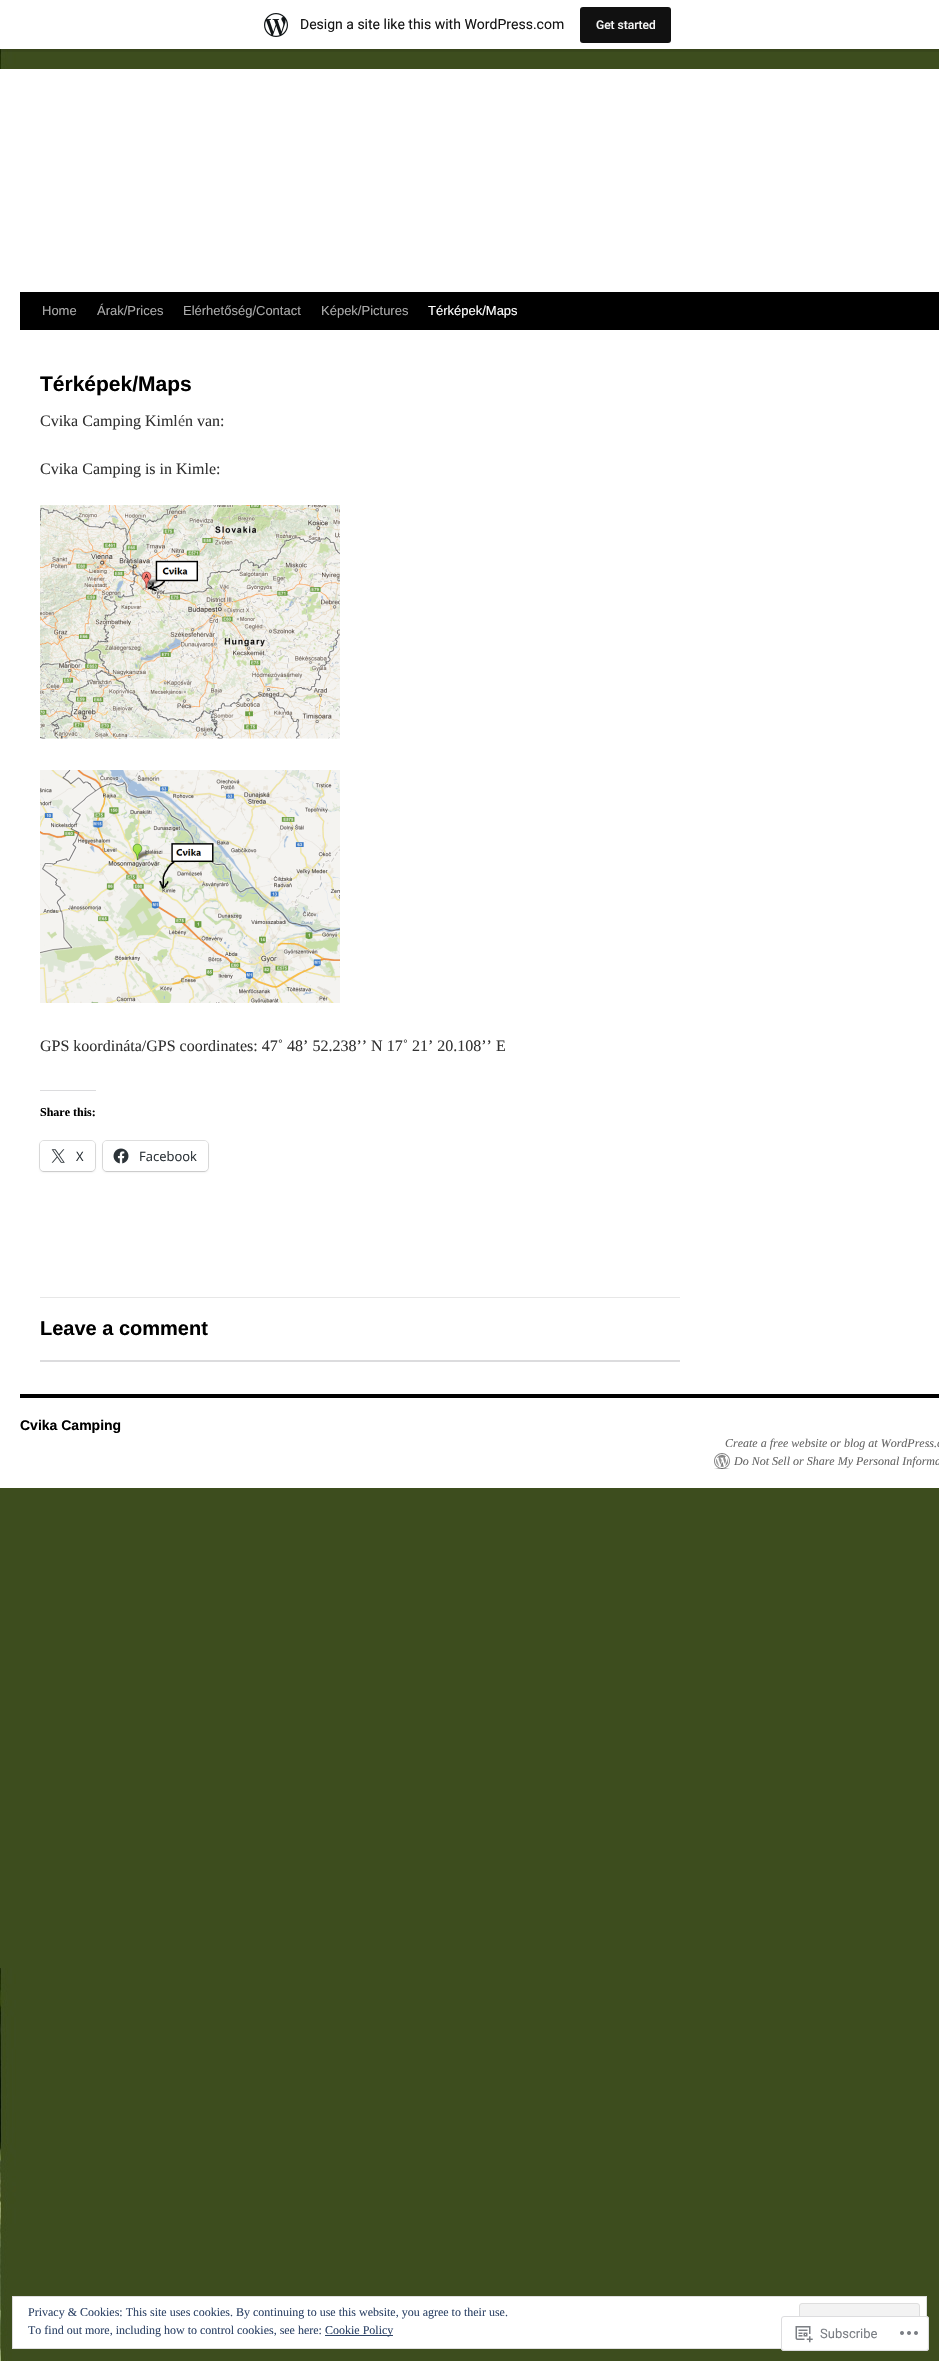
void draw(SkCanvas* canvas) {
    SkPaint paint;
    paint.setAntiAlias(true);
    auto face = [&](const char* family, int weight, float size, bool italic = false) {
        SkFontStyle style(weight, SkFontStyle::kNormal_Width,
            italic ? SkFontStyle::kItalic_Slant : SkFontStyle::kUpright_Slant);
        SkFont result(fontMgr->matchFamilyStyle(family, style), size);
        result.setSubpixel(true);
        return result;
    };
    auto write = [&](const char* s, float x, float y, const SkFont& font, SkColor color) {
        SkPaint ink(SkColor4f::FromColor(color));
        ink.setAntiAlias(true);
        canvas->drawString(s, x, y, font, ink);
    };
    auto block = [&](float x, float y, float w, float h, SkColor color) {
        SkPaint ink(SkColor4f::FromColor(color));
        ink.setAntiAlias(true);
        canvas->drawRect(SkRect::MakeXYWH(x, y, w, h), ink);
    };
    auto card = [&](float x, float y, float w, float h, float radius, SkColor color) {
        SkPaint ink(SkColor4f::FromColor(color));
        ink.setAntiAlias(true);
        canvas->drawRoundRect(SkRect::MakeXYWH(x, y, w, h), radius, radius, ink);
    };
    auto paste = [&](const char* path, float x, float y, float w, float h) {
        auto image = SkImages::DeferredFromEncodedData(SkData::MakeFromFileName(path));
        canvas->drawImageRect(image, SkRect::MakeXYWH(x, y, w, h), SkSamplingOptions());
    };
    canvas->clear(SK_ColorWHITE);
    paste("pic1.png", 0, 49, 939, 2312);
    paint.setColor(SkColorSetARGB(13, 0, 0, 0));
    paint.setMaskFilter(SkMaskFilter::MakeBlur(kNormal_SkBlurStyle, 1));
    canvas->drawRect(SkRect::MakeXYWH(0, 1, 939, 49), paint);
    paint.setMaskFilter(nullptr);
    paint.setColor(SkColorSetARGB(20, 0, 0, 0));
    canvas->drawPath(SkPathBuilder().moveTo(1, 49).lineTo(1, 52).lineTo(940, 52).lineTo(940, 3).lineTo(939, 3).lineTo(939, 49).close().detach(), paint);
    block(0, 0, 939, 49, SK_ColorWHITE);
    paste("pic2.png", 264, 13, 24, 24);
    auto kFont1 = face("Roboto", 400, 14);
    write("Design a site like this with WordPress.com", 300, 29, kFont1, SkColorSetRGB(23, 23, 23));
    card(580, 7, 91, 36, 3, SkColorSetRGB(17, 17, 17));
    auto kFont2 = face("Roboto", 500, 12);
    write("Get started", 596, 29, kFont2, SkColorSetRGB(246, 247, 247));
    block(0, 69, 939, 1419, SK_ColorWHITE);
    block(20, 292, 919, 38, SK_ColorBLACK);
    auto kFont3 = face("Liberation Sans", 400, 13);
    write("Home", 42, 315, kFont3, SkColorSetRGB(170, 170, 170));
    write("Árak/Prices", 97, 315, kFont3, SkColorSetRGB(170, 170, 170));
    write("Elérhetőség/Contact", 183, 315, kFont3, SkColorSetRGB(170, 170, 170));
    write("Képek/Pictures", 321, 315, kFont3, SkColorSetRGB(170, 170, 170));
    write("Térképek/Maps", 428, 315, kFont3, SK_ColorWHITE);
    auto kFont4 = face("Liberation Sans", 700, 21);
    write("Térképek/Maps", 40, 391, kFont4, SK_ColorBLACK);
    auto kFont5 = face("Liberation Serif", 400, 16);
    write("Cvika Camping Kiml", 40, 426, kFont5, SkColorSetRGB(51, 51, 51));
    write("é", 178, 426, kFont5, SkColorSetRGB(84, 84, 84));
    write("n van:", 185, 426, kFont5, SkColorSetRGB(51, 51, 51));
    write("Cvika Camping is in Kimle:", 40, 474, kFont5, SkColorSetRGB(51, 51, 51));
    paste("pic3.png", 40, 505, 300, 234);
    paste("pic4.png", 40, 770, 300, 233);
    write("GPS koordináta/GPS coordinates: 47˚ 48’ 52.238’’ N 17˚ 21’ 20.108’’ E", 40, 1051, kFont5, SkColorSetRGB(51, 51, 51));
    block(40, 1090, 56, 1, SkColorSetRGB(220, 220, 222));
    auto kFont6 = face("Liberation Serif", 700, 12);
    write("Share this:", 40, 1116, kFont6, SK_ColorBLACK);
    paint.setStyle(SkPaint::kStroke_Style);
    paint.setStrokeWidth(1);
    paint.setColor(SkColorSetRGB(224, 224, 224));
    canvas->drawRoundRect(SkRect::MakeXYWH(39.5f, 1140.5f, 56, 31), 4.5f, 4.5f, paint);
    paint.setStyle(SkPaint::kFill_Style);
    paint.setColor(SkColorSetARGB(31, 0, 0, 0));
    paint.setMaskFilter(SkMaskFilter::MakeBlur(kNormal_SkBlurStyle, 1));
    canvas->drawRoundRect(SkRect::MakeXYWH(40, 1142, 55, 30), 4, 4, paint);
    paint.setMaskFilter(nullptr);
    card(40, 1141, 55, 30, 4, SK_ColorWHITE);
    paste("pic5.png", 51, 1149, 14, 14);
    auto kFont7 = face("Open Sans", 400, 13);
    write("X", 76, 1161, kFont7, SkColorSetRGB(44, 51, 56));
    paint.setStyle(SkPaint::kStroke_Style);
    paint.setColor(SkColorSetRGB(224, 224, 224));
    canvas->drawRoundRect(SkRect::MakeXYWH(102.5f, 1140.5f, 106, 31), 4.5f, 4.5f, paint);
    paint.setStyle(SkPaint::kFill_Style);
    paint.setColor(SkColorSetARGB(31, 0, 0, 0));
    paint.setMaskFilter(SkMaskFilter::MakeBlur(kNormal_SkBlurStyle, 1));
    canvas->drawRoundRect(SkRect::MakeXYWH(103, 1142, 105, 30), 4, 4, paint);
    paint.setMaskFilter(nullptr);
    card(103, 1141, 105, 30, 4, SK_ColorWHITE);
    paste("pic6.png", 113, 1148, 16, 16);
    write("Facebook", 139, 1161, kFont7, SkColorSetRGB(44, 51, 56));
    block(40, 1297, 640, 1, SkColorSetRGB(231, 231, 231));
    auto kFont8 = face("Liberation Sans", 700, 20);
    write("Leave a comment", 40, 1335, kFont8, SK_ColorBLACK);
    block(40, 1360, 640, 2, SkColorSetRGB(220, 220, 222));
    block(20, 1394, 919, 4, SK_ColorBLACK);
    auto kFont9 = face("Liberation Sans", 700, 14);
    write("Cvika Camping", 20, 1430, kFont9, SK_ColorBLACK);
    auto kFont10 = face("Liberation Serif", 400, 12, true);
    write("Create a free website or blog at WordPress.c", 725, 1447, kFont10, SkColorSetRGB(102, 102, 102));
    paste("pic7.png", 714, 1453, 16, 16);
    write("Do Not Sell or Share My Personal Informa", 734, 1465, kFont10, SkColorSetRGB(102, 102, 102));
    paint.setColor(SK_ColorWHITE);
    canvas->drawRect(SkRect::MakeXYWH(12.5f, 2296.5f, 914, 52), paint);
    paint.setStyle(SkPaint::kStroke_Style);
    paint.setColor(SkColorSetRGB(222, 222, 222));
    canvas->drawRect(SkRect::MakeXYWH(12.5f, 2296.5f, 914, 52), paint);
    auto kFont11 = face("Liberation Serif", 400, 12);
    write("Privacy & Cookies: This site uses cookies. By continuing to use this website, you agree to their use.", 28, 2316, kFont11, SkColorSetRGB(46, 68, 103));
    paint.setStyle(SkPaint::kFill_Style);
    paint.setColor(SkColorSetRGB(243, 243, 243));
    canvas->drawRoundRect(SkRect::MakeXYWH(799.5f, 2303.5f, 120, 38), 2.5f, 2.5f, paint);
    paint.setStyle(SkPaint::kStroke_Style);
    paint.setColor(SkColorSetRGB(222, 222, 222));
    canvas->drawRoundRect(SkRect::MakeXYWH(799.5f, 2303.5f, 120, 38), 2.5f, 2.5f, paint);
    write("To find out more, including how to control cookies, see here:", 28, 2334, kFont11, SkColorSetRGB(46, 68, 103));
    block(325, 2335, 68, 1, SkColorSetRGB(46, 68, 103));
    write("Cookie Policy", 325, 2334, kFont11, SkColorSetRGB(46, 68, 103));
    card(781, 2316, 148, 35, 3, SkColorSetARGB(250, 255, 255, 255));
    paint.setColor(SkColorSetARGB(250, 220, 220, 222));
    canvas->drawRoundRect(SkRect::MakeXYWH(781.5f, 2316.5f, 147, 34), 2.5f, 2.5f, paint);
    paste("pic8.png", 795, 2326, 18, 17);
    auto kFont12 = face("Roboto", 400, 13);
    write("Subscribe", 820, 2338, kFont12, SkColorSetRGB(122, 126, 132));
    paste("pic9.png", 900, 2331, 18, 4);
}
